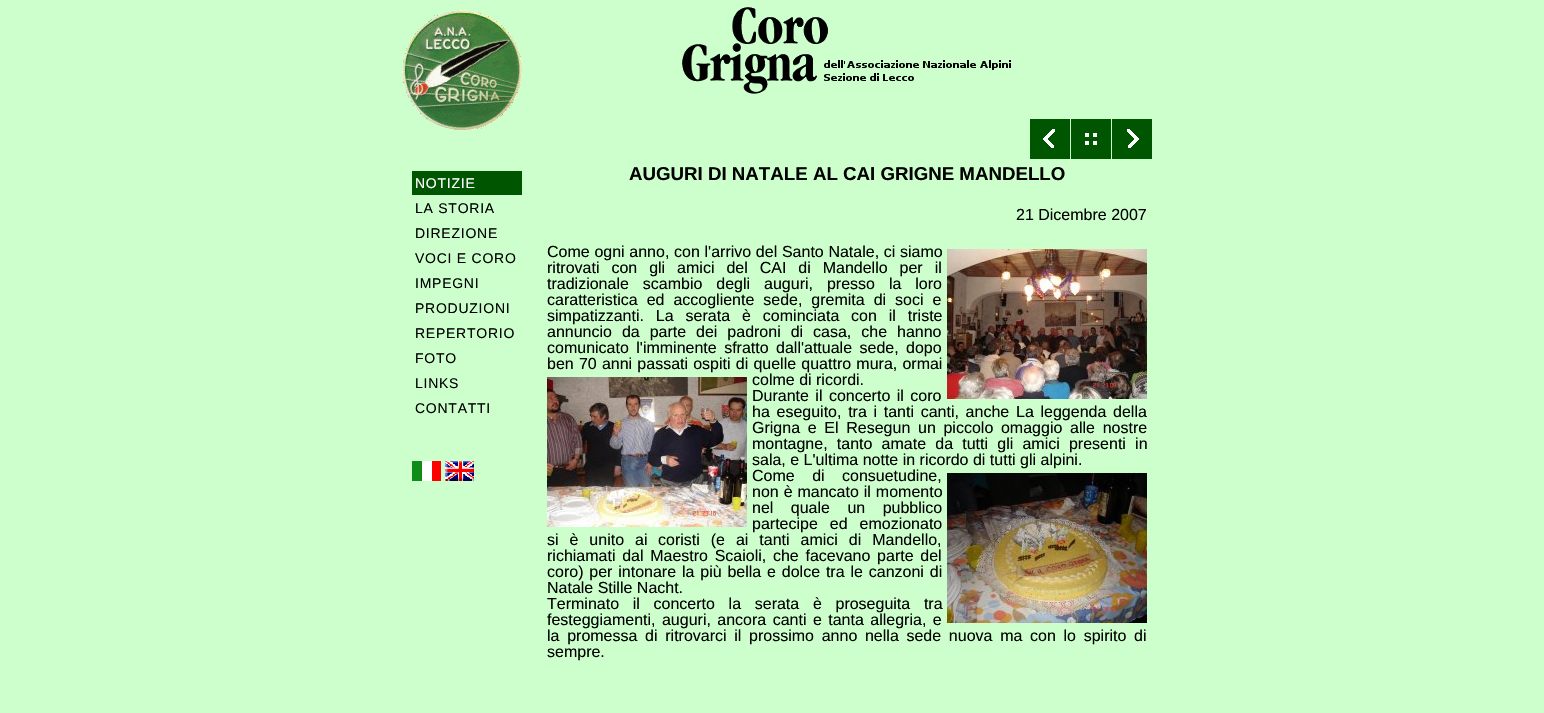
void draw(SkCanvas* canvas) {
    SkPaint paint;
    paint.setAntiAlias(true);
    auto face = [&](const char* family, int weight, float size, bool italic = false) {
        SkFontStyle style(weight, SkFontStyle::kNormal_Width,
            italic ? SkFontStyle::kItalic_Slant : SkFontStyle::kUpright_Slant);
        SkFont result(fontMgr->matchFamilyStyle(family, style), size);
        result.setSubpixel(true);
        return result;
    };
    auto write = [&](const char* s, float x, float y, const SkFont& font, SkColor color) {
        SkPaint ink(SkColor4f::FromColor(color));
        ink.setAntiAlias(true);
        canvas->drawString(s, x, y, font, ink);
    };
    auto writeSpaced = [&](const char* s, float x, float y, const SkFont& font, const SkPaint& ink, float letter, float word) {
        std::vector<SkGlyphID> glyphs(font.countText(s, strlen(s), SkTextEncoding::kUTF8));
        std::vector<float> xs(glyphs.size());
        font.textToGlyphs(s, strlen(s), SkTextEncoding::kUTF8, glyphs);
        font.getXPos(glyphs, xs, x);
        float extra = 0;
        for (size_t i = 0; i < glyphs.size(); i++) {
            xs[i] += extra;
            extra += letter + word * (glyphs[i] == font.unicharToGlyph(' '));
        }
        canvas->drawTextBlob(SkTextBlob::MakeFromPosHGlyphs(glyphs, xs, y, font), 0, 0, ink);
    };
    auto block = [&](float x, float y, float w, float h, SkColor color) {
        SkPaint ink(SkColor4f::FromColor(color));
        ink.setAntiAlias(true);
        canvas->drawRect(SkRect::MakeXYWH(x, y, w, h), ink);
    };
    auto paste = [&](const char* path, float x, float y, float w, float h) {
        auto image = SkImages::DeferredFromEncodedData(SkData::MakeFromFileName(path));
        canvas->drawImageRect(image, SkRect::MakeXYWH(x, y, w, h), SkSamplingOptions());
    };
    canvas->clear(SkColorSetRGB(204, 255, 204));
    paste("pic1.png", 402, 10, 120, 120);
    block(412, 171, 110, 24, SkColorSetRGB(0, 85, 0));
    auto kFont1 = face("Liberation Sans", 400, 14);
    paint.setColor(SK_ColorWHITE);
    writeSpaced("NOTIZIE", 415, 188, kFont1, paint, 0.75f, 0);
    paint.setColor(SK_ColorBLACK);
    writeSpaced("LA STORIA", 415, 213, kFont1, paint, 0.75f, 0);
    writeSpaced("DIREZIONE", 415, 238, kFont1, paint, 0.75f, 0);
    writeSpaced("VOCI E CORO", 415, 263, kFont1, paint, 0.75f, 0);
    writeSpaced("IMPEGNI", 415, 288, kFont1, paint, 0.75f, 0);
    writeSpaced("PRODUZIONI", 415, 313, kFont1, paint, 0.75f, 0);
    writeSpaced("REPERTORIO", 415, 338, kFont1, paint, 0.75f, 0);
    writeSpaced("FOTO", 415, 363, kFont1, paint, 0.75f, 0);
    writeSpaced("LINKS", 415, 388, kFont1, paint, 0.75f, 0);
    writeSpaced("CONTATTI", 415, 413, kFont1, paint, 0.75f, 0);
    paste("pic2.png", 412, 461, 29, 20);
    paste("pic3.png", 445, 461, 29, 20);
    paste("pic4.png", 682, 7, 329, 87);
    block(1030, 119, 40, 40, SkColorSetRGB(0, 85, 0));
    paste("pic5.png", 1043, 129, 12, 19);
    block(1071, 119, 40, 40, SkColorSetRGB(0, 85, 0));
    paste("pic6.png", 1085, 133, 12, 12);
    block(1112, 119, 40, 40, SkColorSetRGB(0, 85, 0));
    paste("pic7.png", 1127, 129, 12, 19);
    auto kFont2 = face("Liberation Sans", 700, 18.7f);
    write("AUGURI DI NATALE AL CAI GRIGNE MANDELLO", 629, 180, kFont2, SK_ColorBLACK);
    auto kFont3 = face("Liberation Sans", 400, 16);
    write("21 Dicembre 2007", 1016, 220, kFont3, SK_ColorBLACK);
    writeSpaced("Come ogni anno, con l'arrivo del Santo Natale, ci siamo", 547, 257, kFont3, paint, 0, 0.25f);
    paste("pic8.png", 947, 249, 200, 150);
    writeSpaced("ritrovati con gli amici del CAI di Mandello per il", 547, 273, kFont3, paint, 0, 7.5f);
    writeSpaced("tradizionale scambio degli auguri, presso la loro", 547, 289, kFont3, paint, 0, 9.5f);
    writeSpaced("caratteristica ed accogliente sede, gremita di soci e", 547, 305, kFont3, paint, 0, 4.5f);
    writeSpaced("simpatizzanti. La serata è cominciata", 547, 321, kFont3, paint, 0, 7.5f);
    writeSpaced("con il triste", 851, 321, kFont3, paint, 0, 7.5f);
    writeSpaced("annuncio da parte dei padroni di casa, che hanno", 547, 337, kFont3, paint, 0, 5.5f);
    writeSpaced("comunicato l'imminente sfratto dall'attuale sede, dopo", 547, 353, kFont3, paint, 0, 3);
    writeSpaced("ben 70 anni passati ospiti di quelle quattro mura, ormai", 547, 369, kFont3, paint, 0, 0.75f);
    paste("pic9.png", 547, 377, 200, 150);
    write("colme di ricordi.", 752, 385, kFont3, SK_ColorBLACK);
    writeSpaced("Durante il concerto il coro", 752, 401, kFont3, paint, 0, 2);
    writeSpaced("ha eseguito, tra i tanti canti, anche", 752, 417, kFont3, paint, 0, 2.25f);
    writeSpaced("La leggenda della", 1016, 417, kFont3, paint, 0, 2.25f);
    writeSpaced("Grigna e El Resegun un piccolo omaggio alle nostre", 752, 433, kFont3, paint, 0, 3.25f);
    writeSpaced("montagne, tanto amate da tutti gli amici presenti in", 752, 449, kFont3, paint, 0, 4.75f);
    write("sala, e L'ultima notte in ricordo di tutti gli alpini.", 752, 465, kFont3, SK_ColorBLACK);
    writeSpaced("Come di consuetudine,", 752, 481, kFont3, paint, 0, 13);
    paste("pic10.png", 947, 473, 200, 150);
    writeSpaced("non è mancato il momento", 752, 497, kFont3, paint, 0, 0.5f);
    writeSpaced("nel quale un pubblico", 752, 513, kFont3, paint, 0, 13);
    writeSpaced("partecipe ed emozionato", 752, 529, kFont3, paint, 0, 7.5f);
    writeSpaced("si è unito ai", 547, 545, kFont3, paint, 0, 6.5f);
    writeSpaced("coristi (e ai tanti amici di Mandello,", 658, 545, kFont3, paint, 0, 6.5f);
    writeSpaced("richiamati dal Maestro Scaioli, che facevano parte del", 547, 561, kFont3, paint, 0, 2.25f);
    writeSpaced("coro) per intonare la più bella e dolce tra le canzoni di", 547, 577, kFont3, paint, 0, 1.4f);
    write("Natale Stille Nacht.", 547, 593, kFont3, SK_ColorBLACK);
    writeSpaced("Terminato il concerto la serata è proseguita tra", 547, 609, kFont3, paint, 0, 9.25f);
    writeSpaced("festeggiamenti, auguri, ancora canti e tanta allegria, e", 547, 625, kFont3, paint, 0, 2);
    writeSpaced("la promessa di ritrovarci il prossimo anno nella sede nuova ma con lo spirito di", 547, 641, kFont3, paint, 0, 3.25f);
    write("sempre.", 547, 657, kFont3, SK_ColorBLACK);
}
